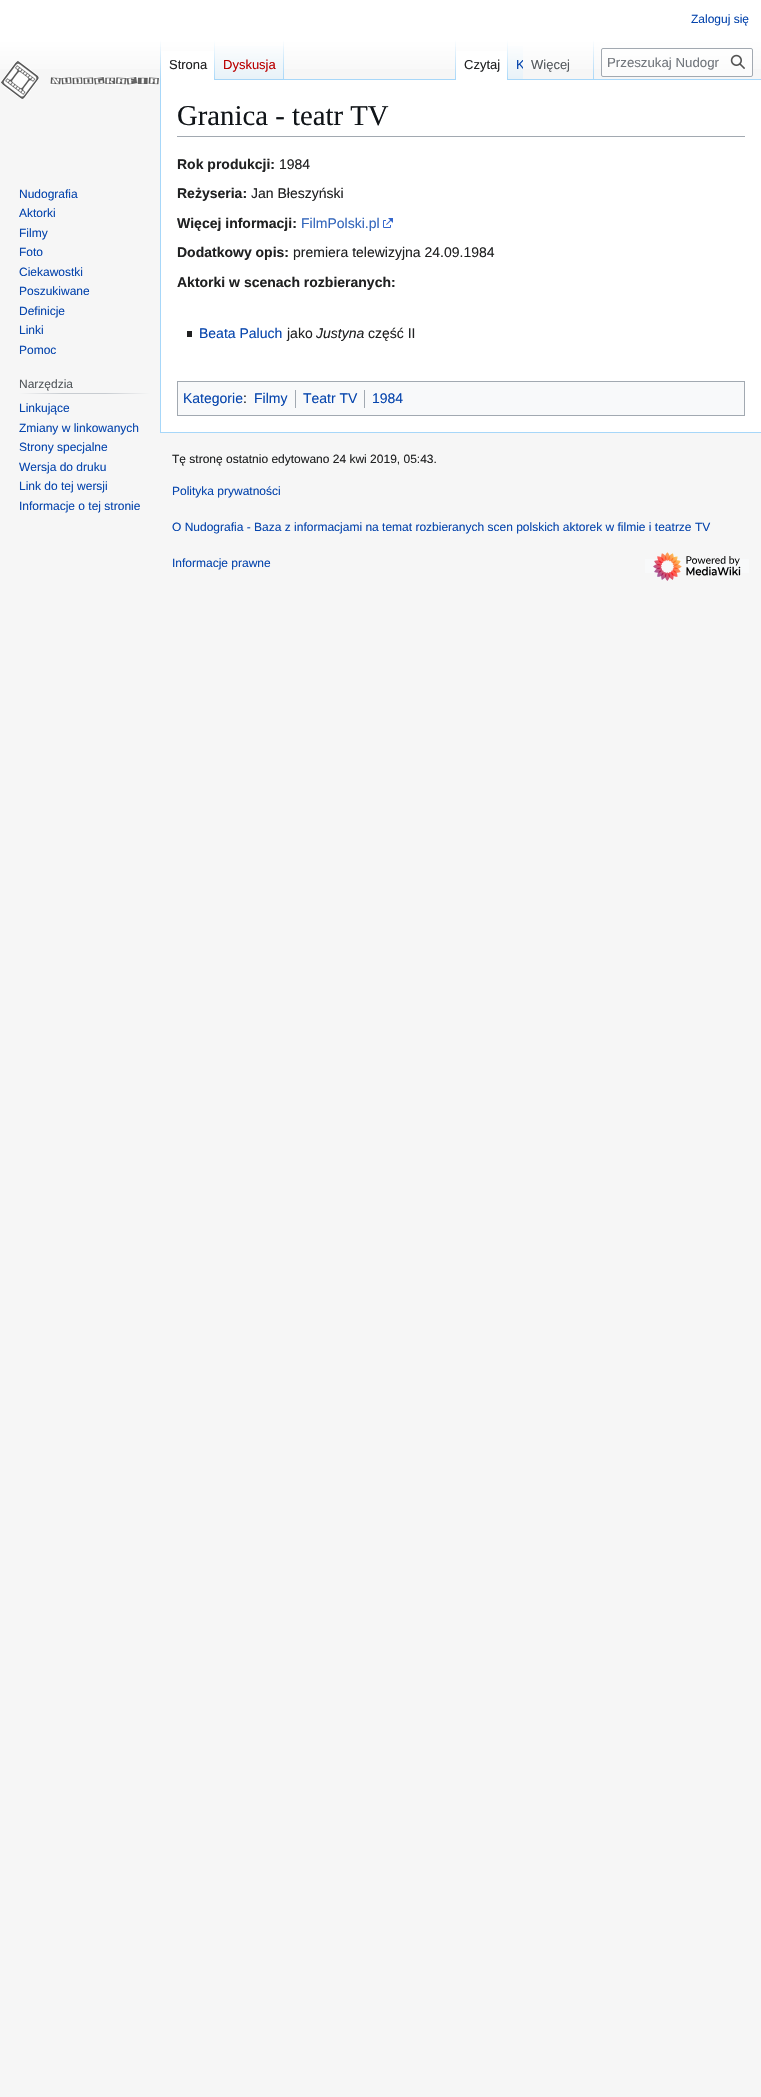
void draw(SkCanvas* canvas) {
    SkPaint paint;
    paint.setAntiAlias(true);
    auto face = [&](const char* family, int weight, float size, bool italic = false) {
        SkFontStyle style(weight, SkFontStyle::kNormal_Width,
            italic ? SkFontStyle::kItalic_Slant : SkFontStyle::kUpright_Slant);
        SkFont result(fontMgr->matchFamilyStyle(family, style), size);
        result.setSubpixel(true);
        return result;
    };
    auto write = [&](const char* s, float x, float y, const SkFont& font, SkColor color) {
        SkPaint ink(SkColor4f::FromColor(color));
        ink.setAntiAlias(true);
        canvas->drawString(s, x, y, font, ink);
    };
    auto block = [&](float x, float y, float w, float h, SkColor color) {
        SkPaint ink(SkColor4f::FromColor(color));
        ink.setAntiAlias(true);
        canvas->drawRect(SkRect::MakeXYWH(x, y, w, h), ink);
    };
    auto paste = [&](const char* path, float x, float y, float w, float h) {
        auto image = SkImages::DeferredFromEncodedData(SkData::MakeFromFileName(path));
        canvas->drawImageRect(image, SkRect::MakeXYWH(x, y, w, h), SkSamplingOptions());
    };
    canvas->clear(SkColorSetRGB(246, 246, 246));
    {
        const SkColor colors[] = {SK_ColorWHITE, SkColorSetRGB(246, 246, 246)};
        const float stops[] = {0.5f, 1};
        const SkPoint ends[] = {{381, 0}, {381, 80}};
        paint.setShader(SkGradientShader::MakeLinear(ends, colors, stops, 2, SkTileMode::kClamp));
        paint.setAlpha(255);
    }
    canvas->drawRect(SkRect::MakeXYWH(0, 0, 761, 69), paint);
    auto kFont1 = face("Liberation Sans", 400, 12);
    write("Zaloguj się", 691, 23, kFont1, SkColorSetRGB(6, 69, 173));
    block(160, 432, 601, 1, SkColorSetRGB(167, 215, 249));
    block(160, 79, 1, 354, SkColorSetRGB(167, 215, 249));
    {
        const SkColor colors[] = {SkColorSetARGB(0, 167, 215, 249), SkColorSetRGB(167, 215, 249)};
        const float stops[] = {0, 1};
        const SkPoint ends[] = {{161, 40}, {161, 80}};
        paint.setShader(SkGradientShader::MakeLinear(ends, colors, stops, 2, SkTileMode::kClamp));
        paint.setAlpha(255);
    }
    canvas->drawRect(SkRect::MakeXYWH(160, 40, 1, 40), paint);
    block(161, 51, 53, 29, SK_ColorWHITE);
    {
        const SkColor colors[] = {SK_ColorWHITE, SkColorSetRGB(167, 215, 249)};
        const float stops[] = {0, 1};
        const SkPoint ends[] = {{215, 40}, {215, 80}};
        paint.setShader(SkGradientShader::MakeLinear(ends, colors, stops, 2, SkTileMode::kClamp));
        paint.setAlpha(255);
    }
    canvas->drawRect(SkRect::MakeXYWH(214, 40, 1, 40), paint);
    auto kFont2 = face("Liberation Sans", 400, 13);
    write("Strona", 169, 69, kFont2, SkColorSetRGB(32, 33, 34));
    {
        const SkColor colors[] = {SkColorSetRGB(119, 193, 246), SkColorSetRGB(232, 242, 248), SK_ColorWHITE};
        const float stops[] = {0, 0.03f, 1};
        const SkPoint ends[] = {{250, 80}, {250, 40}};
        paint.setShader(SkGradientShader::MakeLinear(ends, colors, stops, 3, SkTileMode::kClamp));
        paint.setAlpha(255);
    }
    canvas->drawRect(SkRect::MakeXYWH(215, 46, 69, 34), paint);
    {
        const SkColor colors[] = {SkColorSetARGB(0, 167, 215, 249), SkColorSetRGB(167, 215, 249)};
        const float stops[] = {0, 1};
        const SkPoint ends[] = {{284, 40}, {284, 80}};
        paint.setShader(SkGradientShader::MakeLinear(ends, colors, stops, 2, SkTileMode::kClamp));
        paint.setAlpha(255);
    }
    canvas->drawRect(SkRect::MakeXYWH(283, 40, 1, 40), paint);
    write("Dyskusja", 223, 69, kFont2, SkColorSetRGB(186, 0, 0));
    block(284, 79, 477, 1, SkColorSetRGB(167, 215, 249));
    {
        const SkColor colors[] = {SkColorSetARGB(0, 167, 215, 249), SkColorSetRGB(167, 215, 249)};
        const float stops[] = {0, 1};
        const SkPoint ends[] = {{456, 40}, {456, 80}};
        paint.setShader(SkGradientShader::MakeLinear(ends, colors, stops, 2, SkTileMode::kClamp));
        paint.setAlpha(255);
    }
    canvas->drawRect(SkRect::MakeXYWH(455, 40, 1, 40), paint);
    block(456, 51, 51, 29, SK_ColorWHITE);
    {
        const SkColor colors[] = {SK_ColorWHITE, SkColorSetRGB(167, 215, 249)};
        const float stops[] = {0, 1};
        const SkPoint ends[] = {{508, 40}, {508, 80}};
        paint.setShader(SkGradientShader::MakeLinear(ends, colors, stops, 2, SkTileMode::kClamp));
        paint.setAlpha(255);
    }
    canvas->drawRect(SkRect::MakeXYWH(507, 40, 1, 40), paint);
    write("Czytaj", 464, 69, kFont2, SkColorSetRGB(32, 33, 34));
    {
        const SkColor colors[] = {SkColorSetRGB(119, 193, 246), SkColorSetRGB(232, 242, 248), SK_ColorWHITE};
        const float stops[] = {0, 0.03f, 1};
        const SkPoint ends[] = {{516, 80}, {516, 40}};
        paint.setShader(SkGradientShader::MakeLinear(ends, colors, stops, 3, SkTileMode::kClamp));
        paint.setAlpha(255);
    }
    canvas->drawRect(SkRect::MakeXYWH(508, 46, 15, 33), paint);
    canvas->save();
    canvas->clipRect(SkRect::MakeXYWH(508, 40, 15, 40));
    write("K", 516, 69, kFont2, SkColorSetRGB(6, 69, 173));
    canvas->restore();
    {
        const SkColor colors[] = {SkColorSetARGB(0, 167, 215, 249), SkColorSetRGB(167, 215, 249)};
        const float stops[] = {0, 1};
        const SkPoint ends[] = {{594, 40}, {594, 80}};
        paint.setShader(SkGradientShader::MakeLinear(ends, colors, stops, 2, SkTileMode::kClamp));
        paint.setAlpha(255);
    }
    canvas->drawRect(SkRect::MakeXYWH(593, 40, 1, 40), paint);
    write("Więcej", 531, 69, kFont2, SkColorSetRGB(84, 89, 93));
    paint.setShader(nullptr);
    paint.setColor(SkColorSetARGB(128, 255, 255, 255));
    canvas->drawRoundRect(SkRect::MakeXYWH(601.5f, 48.5f, 151, 28), 1.5f, 1.5f, paint);
    paint.setStyle(SkPaint::kStroke_Style);
    paint.setStrokeWidth(1);
    paint.setColor(SkColorSetRGB(162, 169, 177));
    canvas->drawRoundRect(SkRect::MakeXYWH(601.5f, 48.5f, 151, 28), 1.5f, 1.5f, paint);
    auto kFont3 = face("Liberation Sans", 400, 13.25f);
    write("Przeszukaj Nudogr", 607, 67, kFont3, SkColorSetRGB(114, 119, 125));
    paste("pic1.png", 730, 54, 15, 15);
    paste("pic2.png", 1, 61, 158, 38);
    write("Nudografia", 19, 198, kFont1, SkColorSetRGB(6, 69, 173));
    write("Aktorki", 19, 217, kFont1, SkColorSetRGB(6, 69, 173));
    write("Filmy", 19, 237, kFont1, SkColorSetRGB(6, 69, 173));
    write("Foto", 19, 256, kFont1, SkColorSetRGB(6, 69, 173));
    write("Ciekawostki", 19, 276, kFont1, SkColorSetRGB(6, 69, 173));
    write("Poszukiwane", 19, 295, kFont1, SkColorSetRGB(6, 69, 173));
    write("Definicje", 19, 315, kFont1, SkColorSetRGB(6, 69, 173));
    write("Linki", 19, 334, kFont1, SkColorSetRGB(6, 69, 173));
    write("Pomoc", 19, 354, kFont1, SkColorSetRGB(6, 69, 173));
    paint.setStyle(SkPaint::kFill_Style);
    {
        const SkColor colors[] = {SkColorSetRGB(246, 246, 246), SkColorSetRGB(200, 204, 209), SkColorSetRGB(200, 204, 209), SkColorSetRGB(246, 246, 246)};
        const float stops[] = {0, 0.33f, 0.66f, 1};
        const SkPoint ends[] = {{19, 394}, {150, 394}};
        paint.setShader(SkGradientShader::MakeLinear(ends, colors, stops, 4, SkTileMode::kClamp));
        paint.setAlpha(255);
    }
    canvas->drawRect(SkRect::MakeXYWH(19, 393, 131, 1), paint);
    write("Narzędzia", 19, 388, kFont1, SkColorSetRGB(84, 89, 93));
    write("Linkujące", 19, 412, kFont1, SkColorSetRGB(6, 69, 173));
    write("Zmiany w linkowanych", 19, 432, kFont1, SkColorSetRGB(6, 69, 173));
    write("Strony specjalne", 19, 451, kFont1, SkColorSetRGB(6, 69, 173));
    write("Wersja do druku", 19, 471, kFont1, SkColorSetRGB(6, 69, 173));
    write("Link do tej wersji", 19, 490, kFont1, SkColorSetRGB(6, 69, 173));
    write("Informacje o tej stronie", 19, 510, kFont1, SkColorSetRGB(6, 69, 173));
    block(161, 80, 600, 352, SK_ColorWHITE);
    block(177, 136, 568, 1, SkColorSetRGB(162, 169, 177));
    auto kFont4 = face("Liberation Serif", 400, 28.75f);
    write("Granica - teatr TV", 177, 125, kFont4, SkColorSetRGB(16, 20, 24));
    auto kFont5 = face("Liberation Sans", 700, 14);
    write("Rok produkcji:", 177, 169, kFont5, SkColorSetRGB(32, 33, 34));
    auto kFont6 = face("Liberation Sans", 400, 14);
    write("1984", 279, 169, kFont6, SkColorSetRGB(32, 33, 34));
    write("Reżyseria:", 177, 198, kFont5, SkColorSetRGB(32, 33, 34));
    write("Jan Błeszyński", 251, 198, kFont6, SkColorSetRGB(32, 33, 34));
    write("Więcej informacji:", 177, 228, kFont5, SkColorSetRGB(32, 33, 34));
    write("FilmPolski.pl", 301, 228, kFont6, SkColorSetRGB(51, 102, 187));
    paste("pic3.png", 383, 218, 10, 10);
    write("Dodatkowy opis:", 177, 257, kFont5, SkColorSetRGB(32, 33, 34));
    write("premiera telewizyjna 24.09.1984", 293, 257, kFont6, SkColorSetRGB(32, 33, 34));
    write("Aktorki w scenach rozbieranych:", 177, 287, kFont5, SkColorSetRGB(32, 33, 34));
    block(187, 331, 5, 6, SkColorSetRGB(32, 33, 34));
    write("Beata Paluch", 199, 338, kFont6, SkColorSetRGB(6, 69, 173));
    write("jako", 287, 338, kFont6, SkColorSetRGB(32, 33, 34));
    auto kFont7 = face("Liberation Sans", 400, 14, true);
    write("Justyna", 316, 338, kFont7, SkColorSetRGB(32, 33, 34));
    write("część II", 368, 338, kFont6, SkColorSetRGB(32, 33, 34));
    paint.setShader(nullptr);
    paint.setColor(SkColorSetRGB(248, 249, 250));
    canvas->drawRect(SkRect::MakeXYWH(177.5f, 381.5f, 567, 34), paint);
    paint.setStyle(SkPaint::kStroke_Style);
    paint.setColor(SkColorSetRGB(162, 169, 177));
    canvas->drawRect(SkRect::MakeXYWH(177.5f, 381.5f, 567, 34), paint);
    write("Kategorie", 183, 403, kFont6, SkColorSetRGB(6, 69, 173));
    write(":", 243, 403, kFont6, SkColorSetRGB(32, 33, 34));
    write("Filmy", 254, 403, kFont6, SkColorSetRGB(6, 69, 173));
    block(295, 390, 1, 18, SkColorSetRGB(162, 169, 177));
    write("Teatr TV", 303, 403, kFont6, SkColorSetRGB(6, 69, 173));
    block(364, 390, 1, 18, SkColorSetRGB(162, 169, 177));
    write("1984", 372, 403, kFont6, SkColorSetRGB(6, 69, 173));
    write("Tę stronę ostatnio edytowano 24 kwi 2019, 05:43.", 172, 463, kFont1, SkColorSetRGB(32, 33, 34));
    write("Polityka prywatności", 172, 495, kFont1, SkColorSetRGB(6, 69, 173));
    write("O Nudografia - Baza z informacjami na temat rozbieranych scen polskich aktorek w filmie i teatrze TV", 172, 531, kFont1, SkColorSetRGB(6, 69, 173));
    write("Informacje prawne", 172, 567, kFont1, SkColorSetRGB(6, 69, 173));
    block(645, 559, 104, 14, SkColorSetRGB(248, 249, 250));
    paste("pic4.png", 653, 552, 88, 29);
}
